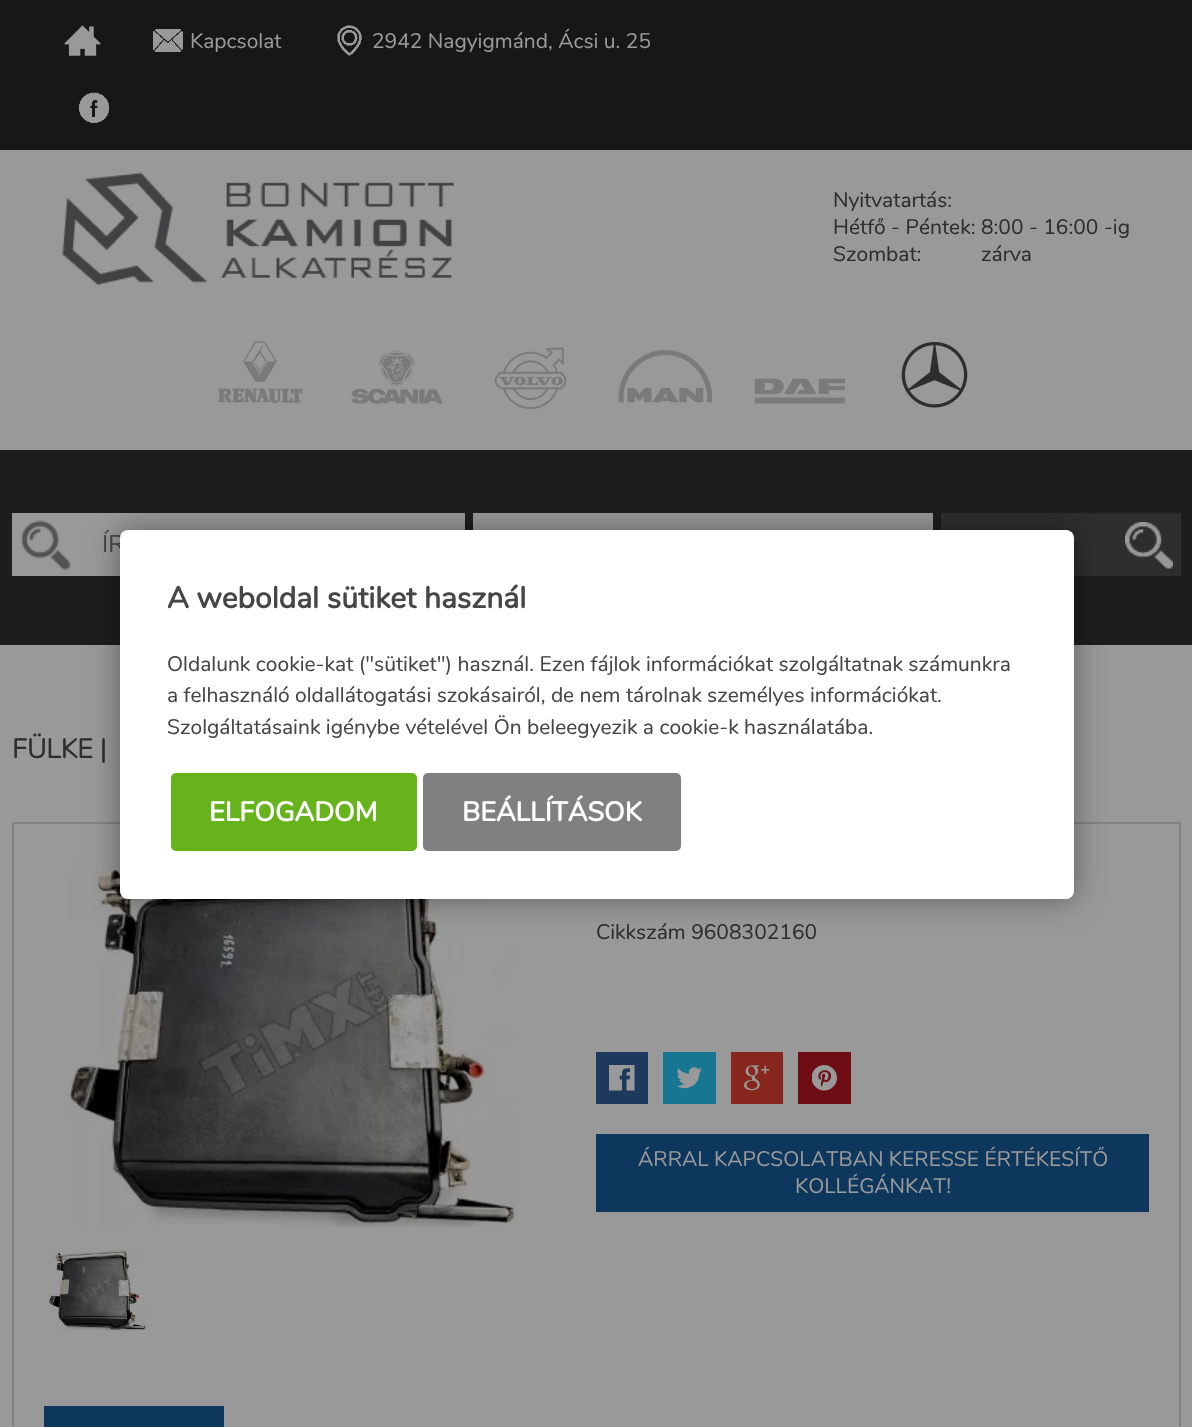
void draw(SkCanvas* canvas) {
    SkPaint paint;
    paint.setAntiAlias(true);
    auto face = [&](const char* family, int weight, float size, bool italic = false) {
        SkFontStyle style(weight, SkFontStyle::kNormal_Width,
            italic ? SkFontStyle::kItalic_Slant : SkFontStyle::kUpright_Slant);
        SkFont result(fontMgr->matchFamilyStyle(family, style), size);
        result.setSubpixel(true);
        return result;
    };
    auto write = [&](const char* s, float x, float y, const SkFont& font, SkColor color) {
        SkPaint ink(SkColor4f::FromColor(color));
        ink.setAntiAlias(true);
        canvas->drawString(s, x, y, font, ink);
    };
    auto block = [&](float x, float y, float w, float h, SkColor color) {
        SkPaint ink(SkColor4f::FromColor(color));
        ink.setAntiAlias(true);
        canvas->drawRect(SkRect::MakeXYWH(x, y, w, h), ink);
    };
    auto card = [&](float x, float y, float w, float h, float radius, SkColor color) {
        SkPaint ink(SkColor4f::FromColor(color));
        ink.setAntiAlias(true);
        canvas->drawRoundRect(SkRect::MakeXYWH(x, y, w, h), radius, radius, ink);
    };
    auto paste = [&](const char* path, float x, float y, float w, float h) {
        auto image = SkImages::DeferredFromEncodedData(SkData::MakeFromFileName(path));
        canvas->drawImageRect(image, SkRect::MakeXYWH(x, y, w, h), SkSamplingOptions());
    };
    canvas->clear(SkColorSetRGB(153, 153, 153));
    block(0, 0, 1192, 150, SkColorSetRGB(23, 23, 23));
    paste("pic1.png", 64, 25, 37, 31);
    paste("pic2.png", 153, 29, 30, 23);
    auto kFont1 = face("Nunito", 400, 21);
    write("Kapcsolat", 190, 48, kFont1, SkColorSetRGB(153, 153, 153));
    paste("pic3.png", 337, 25, 25, 31);
    write("2942 Nagyigmánd, Ácsi u. 25", 372, 48, kFont1, SkColorSetRGB(153, 153, 153));
    paste("pic4.png", 79, 92, 31, 31);
    paste("pic5.png", 62, 172, 392, 114);
    write("Nyitvatartás:", 833, 207, kFont1, SkColorSetRGB(46, 46, 46));
    write("Hétfő - Péntek: 8:00 - 16:00 -ig", 833, 234, kFont1, SkColorSetRGB(46, 46, 46));
    write("Szombat:           zárva", 833, 261, kFont1, SkColorSetRGB(46, 46, 46));
    paste("pic6.png", 217, 341, 86, 62);
    paste("pic7.png", 351, 351, 92, 53);
    paste("pic8.png", 494, 347, 73, 62);
    paste("pic9.png", 618, 350, 95, 53);
    paste("pic10.png", 754, 378, 91, 26);
    paste("pic11.png", 901, 341, 67, 67);
    block(0, 450, 1192, 195, SkColorSetRGB(29, 29, 29));
    block(12, 513, 453, 63, SkColorSetRGB(153, 153, 153));
    paste("pic12.png", 20, 520, 51, 51);
    auto kFont2 = face("Nunito", 400, 24);
    write("ÍR", 102, 552, kFont2, SkColorSetRGB(70, 70, 70));
    block(473, 513, 460, 17, SkColorSetRGB(153, 153, 153));
    block(941, 513, 240, 63, SkColorSetRGB(46, 46, 46));
    paste("pic13.png", 1125, 522, 48, 47);
    auto kFont3 = face("Nunito", 700, 27);
    write("FÜLKE |", 12, 758, kFont3, SkColorSetRGB(46, 46, 46));
    paint.setStyle(SkPaint::kStroke_Style);
    paint.setStrokeWidth(2);
    paint.setColor(SkColorSetRGB(130, 130, 130));
    canvas->drawRect(SkRect::MakeXYWH(13, 823, 1167, 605), paint);
    paste("pic14.png", 66, 854, 451, 373);
    paste("pic15.png", 49, 1250, 97, 81);
    write("Cikkszám 9608302160", 596, 939, kFont1, SkColorSetRGB(46, 46, 46));
    block(596, 1052, 52, 52, SkColorSetRGB(29, 58, 92));
    paste("pic16.png", 609, 1065, 26, 26);
    block(663, 1052, 53, 52, SkColorSetRGB(23, 118, 145));
    paste("pic17.png", 677, 1067, 25, 22);
    block(731, 1052, 52, 52, SkColorSetRGB(134, 38, 28));
    paste("pic18.png", 744, 1065, 26, 26);
    block(798, 1052, 53, 52, SkColorSetRGB(110, 13, 20));
    paste("pic19.png", 812, 1065, 25, 26);
    block(596, 1134, 553, 78, SkColorSetRGB(14, 55, 93));
    write("ÁRRAL KAPCSOLATBAN KERESSE ÉRTÉKESÍTŐ", 638, 1166, kFont1, SkColorSetRGB(153, 153, 153));
    write("KOLLÉGÁNKAT!", 795, 1193, kFont1, SkColorSetRGB(153, 153, 153));
    block(44, 1406, 180, 21, SkColorSetRGB(14, 55, 93));
    paint.setStyle(SkPaint::kFill_Style);
    paint.setColor(SkColorSetARGB(102, 0, 0, 0));
    paint.setMaskFilter(SkMaskFilter::MakeBlur(kNormal_SkBlurStyle, 15));
    canvas->drawRoundRect(SkRect::MakeXYWH(120, 530, 954, 369), 8, 8, paint);
    paint.setMaskFilter(nullptr);
    card(120, 530, 954, 369, 8, SK_ColorWHITE);
    auto kFont4 = face("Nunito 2", 700, 30);
    write("A weboldal sütiket használ", 167, 608, kFont4, SkColorSetRGB(70, 70, 70));
    write("Oldalunk cookie-kat (\"sütiket\") használ. Ezen fájlok információkat szolgáltatnak számunkra", 167, 671, kFont1, SkColorSetRGB(70, 70, 70));
    write("a felhasználó oldallátogatási szokásairól, de nem tárolnak személyes információkat.", 167, 702, kFont1, SkColorSetRGB(70, 70, 70));
    write("Szolgáltatásaink igénybe vételével Ön beleegyezik a cookie-k használatába.", 167, 734, kFont1, SkColorSetRGB(70, 70, 70));
    paint.setColor(SkColorSetRGB(102, 179, 28));
    canvas->drawRoundRect(SkRect::MakeXYWH(172, 774, 244, 76), 4, 4, paint);
    paint.setStyle(SkPaint::kStroke_Style);
    canvas->drawRoundRect(SkRect::MakeXYWH(172, 774, 244, 76), 4, 4, paint);
    auto kFont5 = face("Nunito 2", 700, 27);
    write("ELFOGADOM", 209, 821, kFont5, SK_ColorWHITE);
    paint.setStyle(SkPaint::kFill_Style);
    paint.setColor(SkColorSetRGB(128, 128, 128));
    canvas->drawRoundRect(SkRect::MakeXYWH(424, 774, 256, 76), 4, 4, paint);
    paint.setStyle(SkPaint::kStroke_Style);
    canvas->drawRoundRect(SkRect::MakeXYWH(424, 774, 256, 76), 4, 4, paint);
    write("BEÁLLÍTÁSOK", 462, 821, kFont5, SK_ColorWHITE);
}
